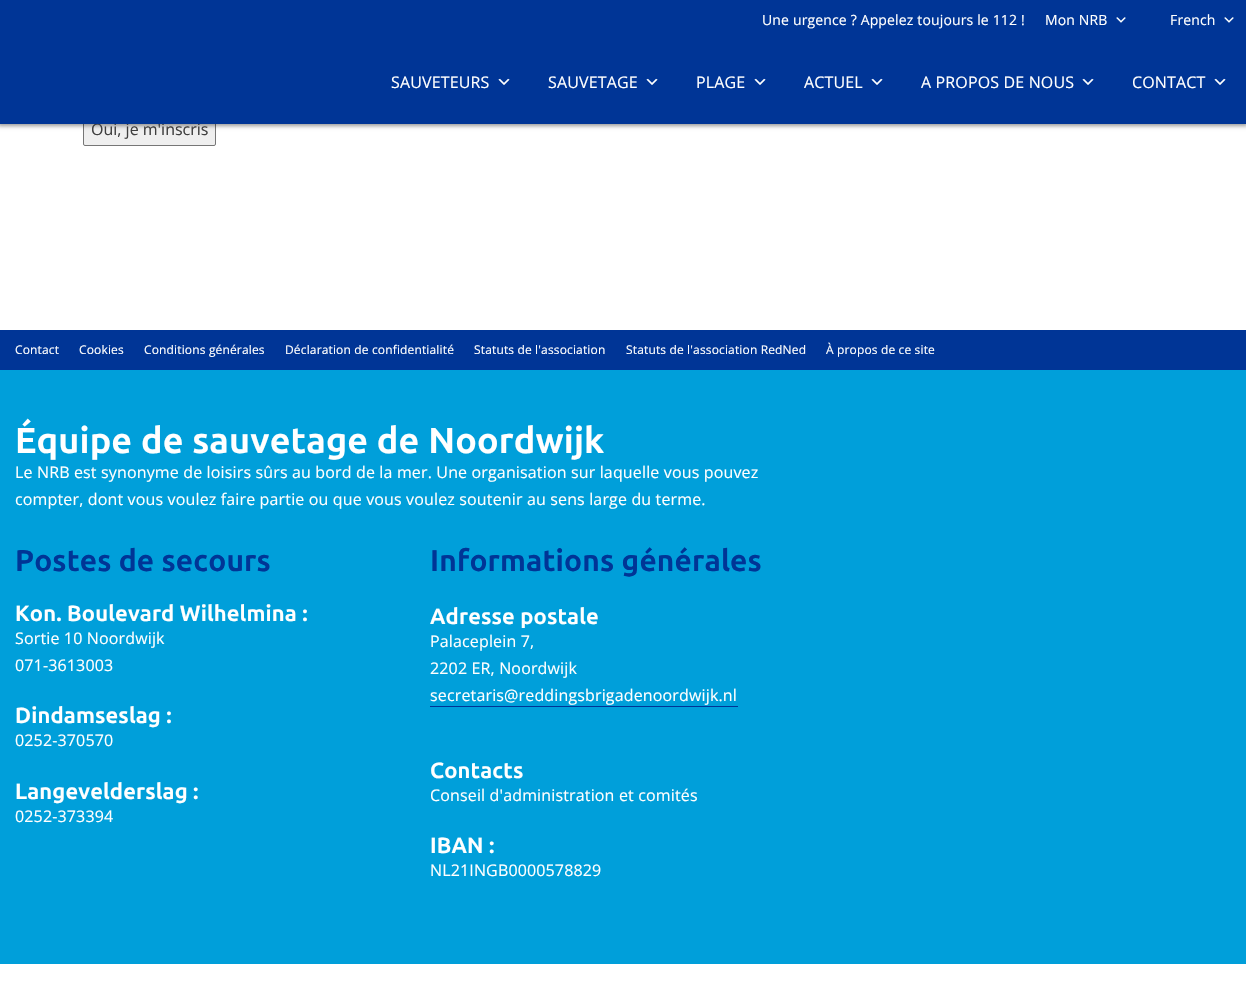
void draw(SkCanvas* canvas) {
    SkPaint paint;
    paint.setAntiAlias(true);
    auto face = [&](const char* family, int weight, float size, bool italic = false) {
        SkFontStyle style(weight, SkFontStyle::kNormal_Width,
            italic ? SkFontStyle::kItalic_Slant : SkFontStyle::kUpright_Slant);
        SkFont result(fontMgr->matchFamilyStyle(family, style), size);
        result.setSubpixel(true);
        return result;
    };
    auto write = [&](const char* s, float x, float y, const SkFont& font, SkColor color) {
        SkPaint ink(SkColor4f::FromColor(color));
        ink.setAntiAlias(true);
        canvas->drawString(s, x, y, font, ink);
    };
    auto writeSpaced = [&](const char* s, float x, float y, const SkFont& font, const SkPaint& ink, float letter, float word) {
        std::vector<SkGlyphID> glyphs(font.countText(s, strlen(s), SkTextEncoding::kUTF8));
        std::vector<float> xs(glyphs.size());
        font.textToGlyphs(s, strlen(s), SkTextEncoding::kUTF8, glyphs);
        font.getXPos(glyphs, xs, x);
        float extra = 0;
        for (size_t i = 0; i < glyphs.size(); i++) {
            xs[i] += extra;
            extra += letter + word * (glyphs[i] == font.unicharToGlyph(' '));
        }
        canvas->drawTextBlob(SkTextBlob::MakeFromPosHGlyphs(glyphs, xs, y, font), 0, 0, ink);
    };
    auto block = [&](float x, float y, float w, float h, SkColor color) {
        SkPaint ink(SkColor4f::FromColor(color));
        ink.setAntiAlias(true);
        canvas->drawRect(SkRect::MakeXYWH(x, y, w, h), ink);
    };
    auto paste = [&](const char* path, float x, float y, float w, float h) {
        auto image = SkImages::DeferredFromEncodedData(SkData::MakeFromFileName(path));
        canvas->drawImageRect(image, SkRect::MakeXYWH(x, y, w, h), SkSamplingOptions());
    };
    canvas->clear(SK_ColorWHITE);
    paint.setColor(SkColorSetRGB(239, 239, 239));
    canvas->drawRoundRect(SkRect::MakeXYWH(83.5f, 113.5f, 132, 32), 1.5f, 1.5f, paint);
    paint.setStyle(SkPaint::kStroke_Style);
    paint.setStrokeWidth(1);
    paint.setColor(SkColorSetRGB(118, 118, 118));
    canvas->drawRoundRect(SkRect::MakeXYWH(83.5f, 113.5f, 132, 32), 1.5f, 1.5f, paint);
    paint.setStyle(SkPaint::kFill_Style);
    paint.setColor(SkColorSetARGB(102, 0, 0, 0));
    paint.setMaskFilter(SkMaskFilter::MakeBlur(kNormal_SkBlurStyle, 2));
    canvas->drawRect(SkRect::MakeXYWH(-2, -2, 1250, 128), paint);
    paint.setMaskFilter(nullptr);
    auto kFont1 = face("Open Sans", 400, 16);
    write("Oui, je m'inscris", 91, 135, kFont1, SkColorSetRGB(63, 63, 63));
    block(0, 0, 1246, 124, SkColorSetRGB(0, 53, 150));
    auto kFont2 = face("Open Sans", 400, 14);
    paint.setColor(SK_ColorWHITE);
    writeSpaced("Une urgence ? Appelez toujours le 112 !", 762, 25, kFont2, paint, 0.15f, 0);
    writeSpaced("Mon NRB", 1045, 25, kFont2, paint, 0.15f, 0);
    paste("pic1.png", 1116, 17, 10, 6);
    writeSpaced("French", 1170, 25, kFont2, paint, 0.15f, 0);
    paste("pic1.png", 1224, 17, 10, 6);
    writeSpaced("SAUVETEURS", 391, 88, kFont1, paint, 0.15f, 0);
    paste("pic2.png", 498, 78, 12, 7);
    writeSpaced("SAUVETAGE", 548, 88, kFont1, paint, 0.15f, 0);
    paste("pic2.png", 646, 78, 12, 7);
    writeSpaced("PLAGE", 696, 88, kFont1, paint, 0.15f, 0);
    paste("pic2.png", 754, 78, 12, 7);
    writeSpaced("ACTUEL", 804, 88, kFont1, paint, 0.15f, 0);
    paste("pic2.png", 871, 78, 12, 7);
    writeSpaced("A PROPOS DE NOUS", 921, 88, kFont1, paint, 0.15f, 0);
    paste("pic2.png", 1082, 78, 12, 7);
    writeSpaced("CONTACT", 1132, 88, kFont1, paint, 0.15f, 0);
    paste("pic2.png", 1214, 78, 12, 7);
    block(0, 330, 1246, 40, SkColorSetRGB(0, 53, 150));
    auto kFont3 = face("Open Sans", 400, 12);
    writeSpaced("Contact", 15, 354, kFont3, paint, 0.15f, 0);
    writeSpaced("Cookies", 79, 354, kFont3, paint, 0.15f, 0);
    writeSpaced("Conditions générales", 144, 354, kFont3, paint, 0.15f, 0);
    writeSpaced("Déclaration de confidentialité", 285, 354, kFont3, paint, 0.15f, 0);
    writeSpaced("Statuts de l'association", 474, 354, kFont3, paint, 0.15f, 0);
    writeSpaced("Statuts de l'association RedNed", 626, 354, kFont3, paint, 0.15f, 0);
    writeSpaced("À propos de ce site", 826, 354, kFont3, paint, 0.15f, 0);
    block(0, 370, 1246, 594, SkColorSetRGB(0, 159, 218));
    auto kFont4 = face("Ubuntu", 700, 36);
    writeSpaced("Équipe de sauvetage de Noordwijk", 15, 453, kFont4, paint, 0.15f, 0);
    writeSpaced("Le NRB est synonyme de loisirs sûrs au bord de la mer. Une organisation sur laquelle vous pouvez", 15, 478, kFont1, paint, 0.15f, 0);
    writeSpaced("compter, dont vous voulez faire partie ou que vous voulez soutenir au sens large du terme.", 15, 505, kFont1, paint, 0.15f, 0);
    auto kFont5 = face("Ubuntu", 700, 30);
    paint.setColor(SkColorSetRGB(0, 53, 150));
    writeSpaced("Postes de secours", 15, 571, kFont5, paint, 0.15f, 0);
    auto kFont6 = face("Ubuntu", 700, 22);
    paint.setColor(SK_ColorWHITE);
    writeSpaced("Kon. Boulevard Wilhelmina :", 15, 621, kFont6, paint, 0.15f, 0);
    writeSpaced("Sortie 10 Noordwijk", 15, 644, kFont1, paint, 0.15f, 0);
    writeSpaced("071-3613003", 15, 671, kFont1, paint, 0.15f, 0);
    writeSpaced("Dindamseslag :", 15, 723, kFont6, paint, 0.15f, 0);
    writeSpaced("0252-370570", 15, 746, kFont1, paint, 0.15f, 0);
    writeSpaced("Langevelderslag :", 15, 799, kFont6, paint, 0.15f, 0);
    writeSpaced("0252-373394", 15, 822, kFont1, paint, 0.15f, 0);
    paint.setColor(SkColorSetRGB(0, 53, 150));
    writeSpaced("Informations générales", 430, 571, kFont5, paint, 0.15f, 0);
    paint.setColor(SK_ColorWHITE);
    writeSpaced("Adresse postale", 430, 624, kFont6, paint, 0.15f, 0);
    writeSpaced("Palaceplein 7,", 430, 647, kFont1, paint, 0.15f, 0);
    writeSpaced("2202 ER, Noordwijk", 430, 674, kFont1, paint, 0.15f, 0);
    writeSpaced("secretaris@reddingsbrigadenoordwijk.nl", 430, 701, kFont1, paint, 0.15f, 0);
    block(430, 706, 308, 1, SkColorSetRGB(0, 53, 150));
    writeSpaced("Contacts", 430, 778, kFont6, paint, 0.15f, 0);
    writeSpaced("Conseil d'administration et comités", 430, 801, kFont1, paint, 0.15f, 0);
    writeSpaced("IBAN :", 430, 853, kFont6, paint, 0.15f, 0);
    writeSpaced("NL21INGB0000578829", 430, 876, kFont1, paint, 0.15f, 0);
}
